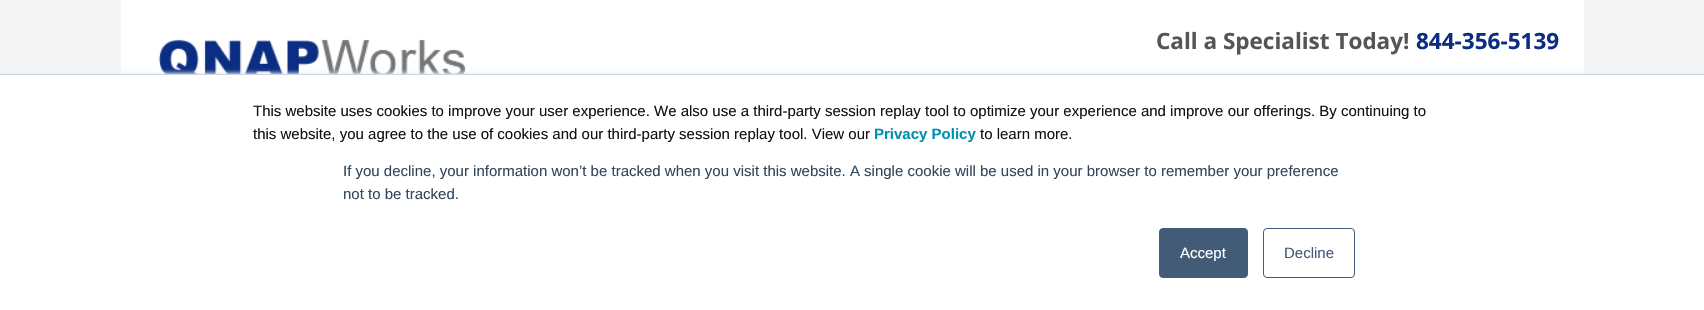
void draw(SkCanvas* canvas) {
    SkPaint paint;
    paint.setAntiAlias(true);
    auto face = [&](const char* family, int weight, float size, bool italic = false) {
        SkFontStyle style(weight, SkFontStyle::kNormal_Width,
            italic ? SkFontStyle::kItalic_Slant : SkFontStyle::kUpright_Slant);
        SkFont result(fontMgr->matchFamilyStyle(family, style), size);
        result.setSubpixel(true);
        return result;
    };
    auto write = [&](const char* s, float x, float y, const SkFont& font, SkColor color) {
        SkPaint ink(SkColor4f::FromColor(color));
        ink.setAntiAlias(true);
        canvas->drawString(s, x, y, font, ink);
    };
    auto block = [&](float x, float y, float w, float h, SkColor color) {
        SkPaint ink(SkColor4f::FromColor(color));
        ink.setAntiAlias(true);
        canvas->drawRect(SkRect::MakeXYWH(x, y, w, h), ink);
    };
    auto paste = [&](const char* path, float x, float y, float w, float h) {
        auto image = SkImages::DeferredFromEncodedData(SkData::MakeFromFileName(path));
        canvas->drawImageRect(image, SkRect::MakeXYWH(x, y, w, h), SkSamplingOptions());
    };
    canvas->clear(SkColorSetRGB(245, 245, 245));
    block(121, 0, 1463, 74, SK_ColorWHITE);
    paste("pic1.png", 158, 39, 308, 35);
    auto kFont1 = face("Open Sans", 700, 22.5f);
    write("Call a Specialist Today!", 1156, 49, kFont1, SkColorSetRGB(85, 85, 85));
    write("844-356-5139", 1416, 49, kFont1, SkColorSetRGB(12, 46, 130));
    paint.setColor(SkColorSetRGB(234, 240, 246));
    paint.setMaskFilter(SkMaskFilter::MakeBlur(kNormal_SkBlurStyle, 2));
    canvas->drawRect(SkRect::MakeXYWH(0, 73, 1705, 236), paint);
    paint.setMaskFilter(nullptr);
    block(0, 75, 1704, 235, SK_ColorWHITE);
    block(0, 74, 1704, 1, SkColorSetRGB(203, 214, 226));
    auto kFont2 = face("Liberation Sans", 400, 15);
    write("This website uses cookies to improve your user experience. We also use a third-party session replay tool to optimize your experience and improve our offerings. By continuing to", 253, 116, kFont2, SkColorSetRGB(18, 18, 18));
    write("this website, you agree to the use of cookies and our third-party session replay tool. View our", 253, 139, kFont2, SkColorSetRGB(18, 18, 18));
    auto kFont3 = face("Liberation Sans", 700, 15);
    write("Privacy Policy", 874, 139, kFont3, SkColorSetRGB(0, 145, 174));
    write("to learn more.", 980, 139, kFont2, SkColorSetRGB(18, 18, 18));
    write("If you decline, your information won’t be tracked when you visit this website. A single cookie will be used in your browser to remember your preference", 343, 176, kFont2, SkColorSetRGB(51, 71, 91));
    write("not to be tracked.", 343, 199, kFont2, SkColorSetRGB(51, 71, 91));
    paint.setColor(SkColorSetRGB(66, 91, 118));
    canvas->drawRoundRect(SkRect::MakeXYWH(1159.5f, 228.5f, 88, 49), 3.5f, 3.5f, paint);
    paint.setStyle(SkPaint::kStroke_Style);
    paint.setStrokeWidth(1);
    canvas->drawRoundRect(SkRect::MakeXYWH(1159.5f, 228.5f, 88, 49), 3.5f, 3.5f, paint);
    write("Accept", 1180, 258, kFont2, SK_ColorWHITE);
    canvas->drawRoundRect(SkRect::MakeXYWH(1263.5f, 228.5f, 91, 49), 3.5f, 3.5f, paint);
    write("Decline", 1284, 258, kFont2, SkColorSetRGB(66, 91, 118));
}
